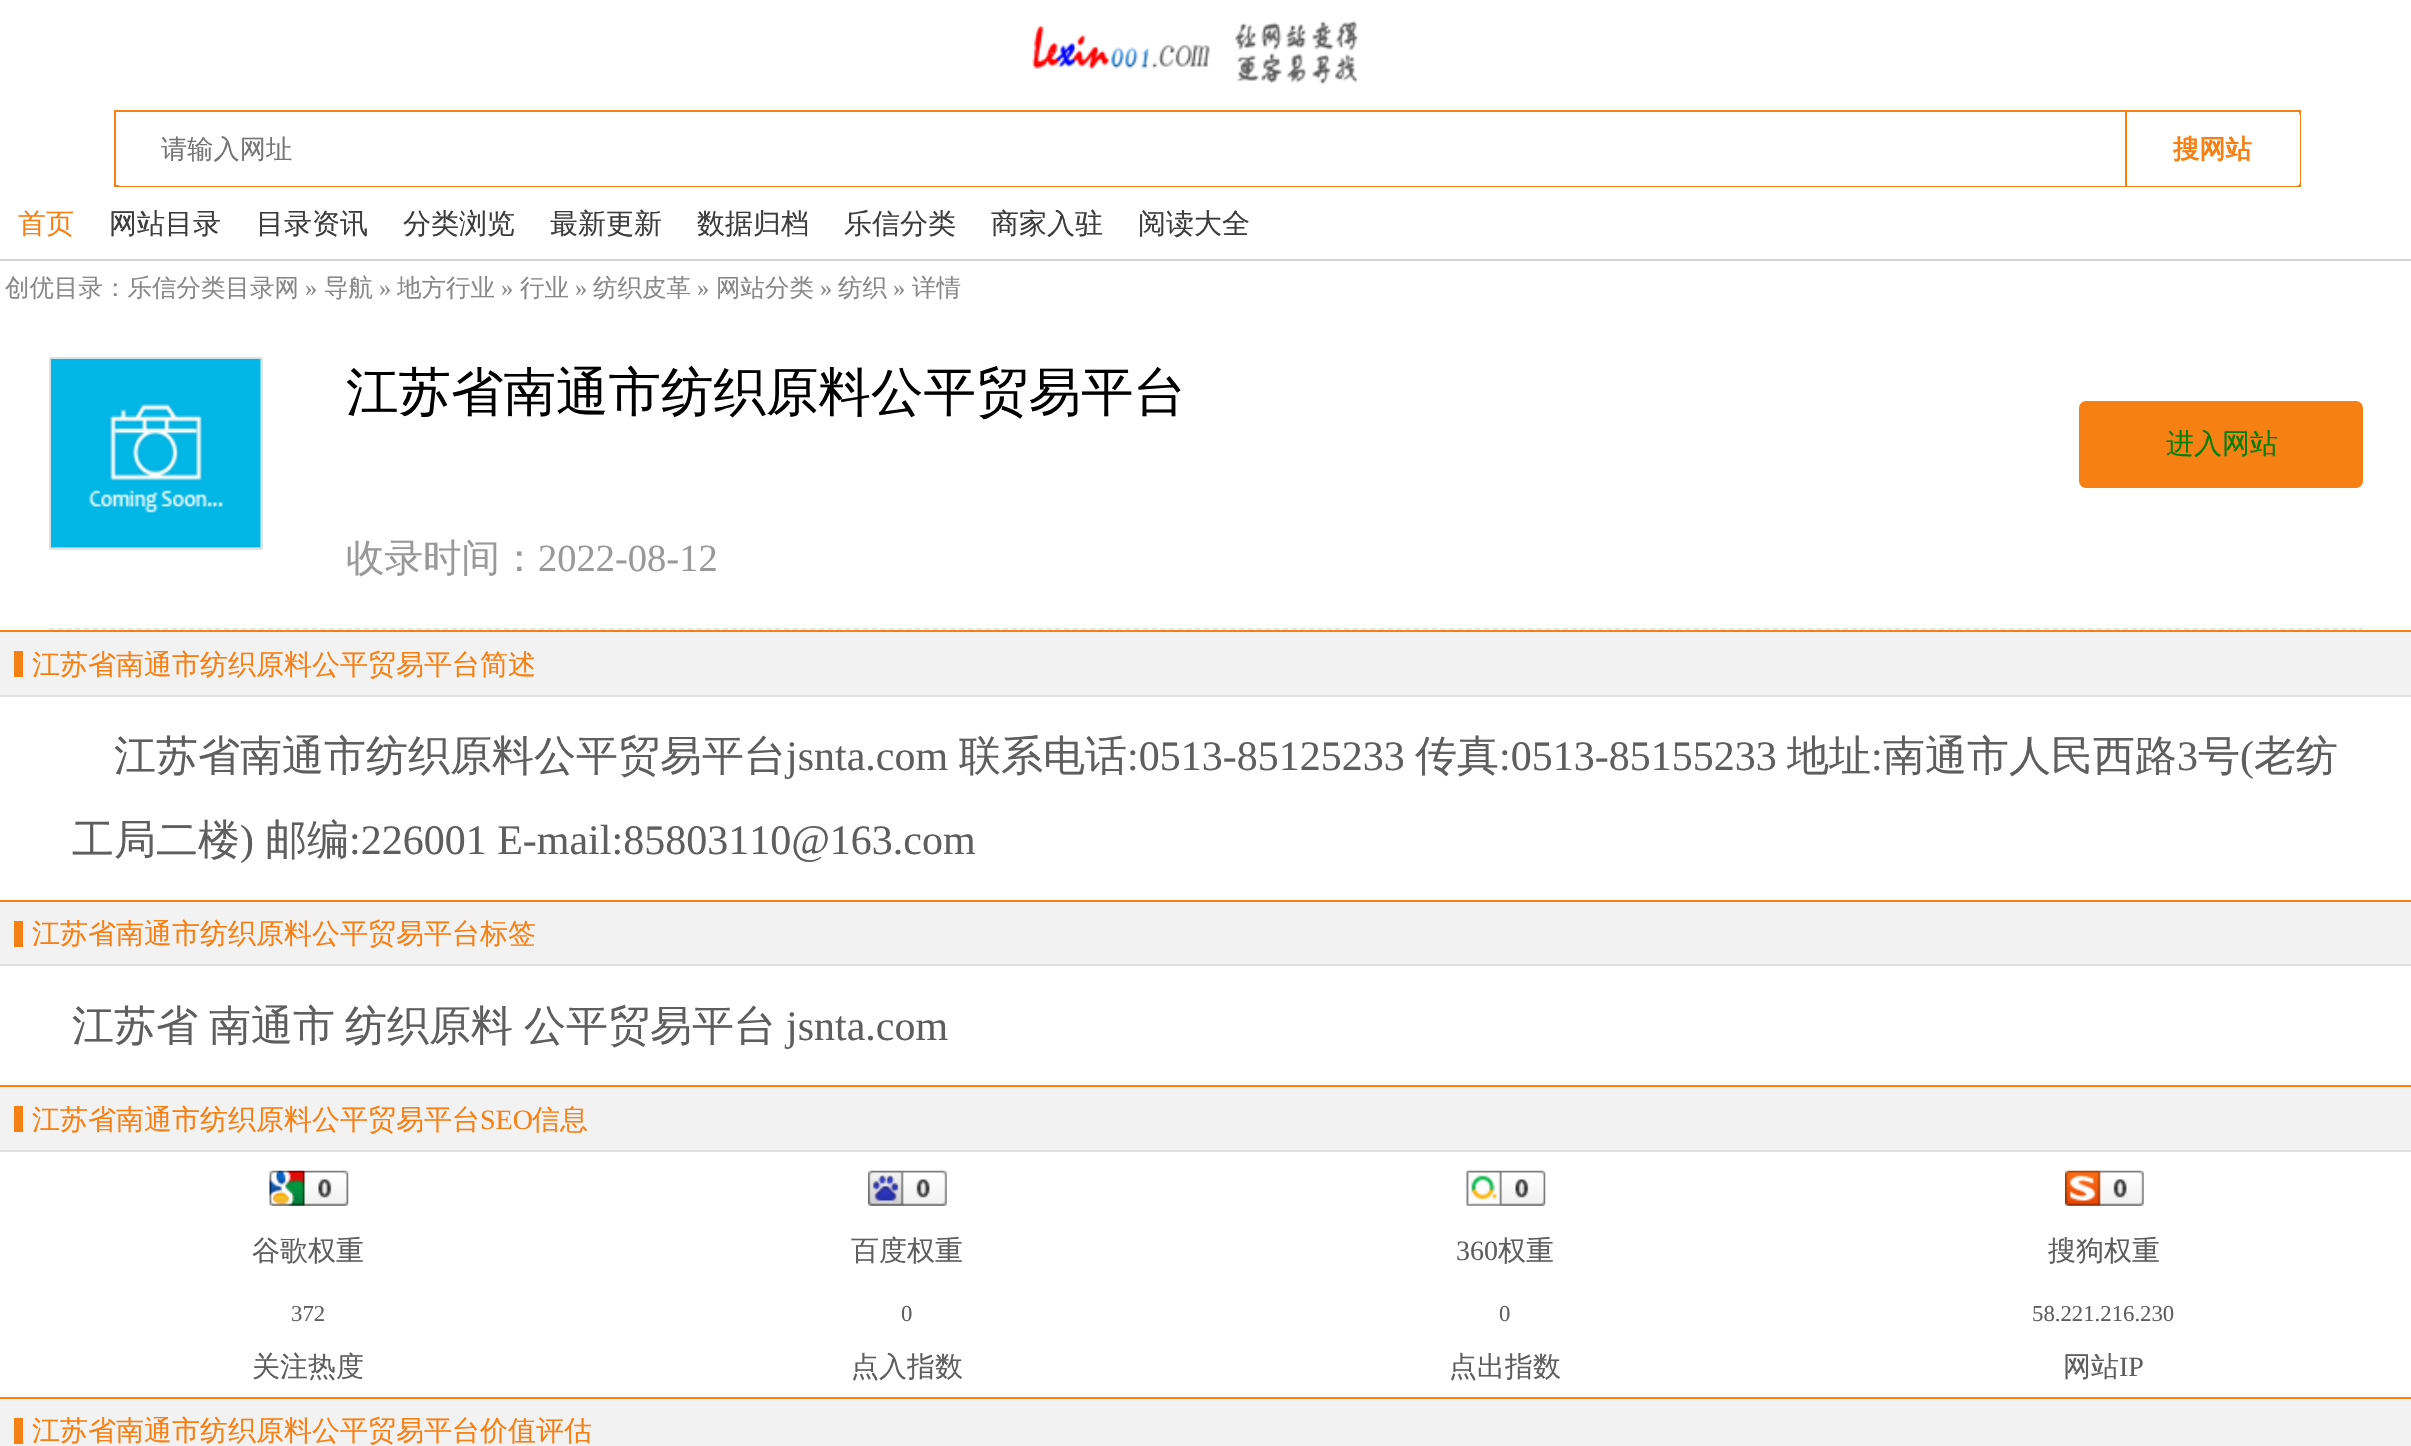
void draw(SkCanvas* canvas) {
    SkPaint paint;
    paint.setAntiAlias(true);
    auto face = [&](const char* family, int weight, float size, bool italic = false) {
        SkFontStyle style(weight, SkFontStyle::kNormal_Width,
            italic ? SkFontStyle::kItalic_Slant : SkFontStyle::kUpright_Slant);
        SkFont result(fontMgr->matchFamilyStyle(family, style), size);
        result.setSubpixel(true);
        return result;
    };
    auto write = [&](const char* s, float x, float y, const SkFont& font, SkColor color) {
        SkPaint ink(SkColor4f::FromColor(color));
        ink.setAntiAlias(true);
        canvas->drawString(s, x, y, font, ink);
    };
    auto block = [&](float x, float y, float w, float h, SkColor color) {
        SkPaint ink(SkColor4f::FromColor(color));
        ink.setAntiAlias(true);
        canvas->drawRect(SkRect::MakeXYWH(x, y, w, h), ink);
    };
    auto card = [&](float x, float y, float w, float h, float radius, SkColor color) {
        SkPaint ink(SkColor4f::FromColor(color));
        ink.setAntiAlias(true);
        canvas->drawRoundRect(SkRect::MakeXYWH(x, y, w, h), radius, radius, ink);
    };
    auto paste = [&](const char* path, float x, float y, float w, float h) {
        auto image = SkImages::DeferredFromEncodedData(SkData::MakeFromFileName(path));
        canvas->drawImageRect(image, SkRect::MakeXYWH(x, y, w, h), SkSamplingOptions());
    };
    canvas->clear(SK_ColorWHITE);
    paste("pic1.png", 1032, 20, 327, 65);
    paint.setStyle(SkPaint::kStroke_Style);
    paint.setStrokeWidth(2);
    paint.setColor(SkColorSetRGB(247, 128, 21));
    canvas->drawRect(SkRect::MakeXYWH(115, 111, 2185, 75), paint);
    card(116, 112, 2184, 74, 5, SK_ColorWHITE);
    auto kFont1 = face("WenQuanYi Zen Hei", 500, 26.25f);
    write("请输入网址", 161, 158, kFont1, SkColorSetRGB(117, 117, 117));
    paint.setStyle(SkPaint::kFill_Style);
    paint.setColor(SK_ColorWHITE);
    canvas->drawPath(SkPathBuilder().moveTo(2125, 112).lineTo(2295, 112).cubicTo(2298, 112, 2300, 114, 2300, 117).lineTo(2300, 181).cubicTo(2300, 184, 2298, 186, 2295, 186).lineTo(2125, 186).close().detach(), paint);
    block(2125, 112, 2, 74, SkColorSetRGB(247, 128, 21));
    auto kFont2 = face("WenQuanYi Zen Hei", 700, 26.25f);
    write("搜网站", 2173, 158, kFont2, SkColorSetRGB(247, 128, 21));
    block(0, 259, 2411, 2, SkColorSetRGB(212, 212, 212));
    auto kFont3 = face("WenQuanYi Zen Hei", 500, 28);
    write("首页", 18, 233, kFont3, SkColorSetRGB(247, 128, 21));
    write("网站目录", 109, 233, kFont3, SkColorSetRGB(60, 60, 60));
    write("目录资讯", 256, 233, kFont3, SkColorSetRGB(60, 60, 60));
    write("分类浏览", 403, 233, kFont3, SkColorSetRGB(60, 60, 60));
    write("最新更新", 550, 233, kFont3, SkColorSetRGB(60, 60, 60));
    write("数据归档", 697, 233, kFont3, SkColorSetRGB(60, 60, 60));
    write("乐信分类", 844, 233, kFont3, SkColorSetRGB(60, 60, 60));
    write("商家入驻", 991, 233, kFont3, SkColorSetRGB(60, 60, 60));
    write("阅读大全", 1138, 233, kFont3, SkColorSetRGB(60, 60, 60));
    auto kFont4 = face("WenQuanYi Zen Hei", 500, 24.5f);
    write("创优目录：乐信分类目录网", 5, 296, kFont4, SkColorSetRGB(136, 136, 136));
    auto kFont5 = face("Liberation Serif", 400, 24.5f);
    write("»", 305, 296, kFont5, SkColorSetRGB(136, 136, 136));
    write("导航", 324, 296, kFont4, SkColorSetRGB(136, 136, 136));
    write("»", 379, 296, kFont5, SkColorSetRGB(136, 136, 136));
    write("地方行业", 397, 296, kFont4, SkColorSetRGB(136, 136, 136));
    write("»", 501, 296, kFont5, SkColorSetRGB(136, 136, 136));
    write("行业", 520, 296, kFont4, SkColorSetRGB(136, 136, 136));
    write("»", 575, 296, kFont5, SkColorSetRGB(136, 136, 136));
    write("纺织皮革", 593, 296, kFont4, SkColorSetRGB(136, 136, 136));
    write("»", 697, 296, kFont5, SkColorSetRGB(136, 136, 136));
    write("网站分类", 716, 296, kFont4, SkColorSetRGB(136, 136, 136));
    write("»", 820, 296, kFont5, SkColorSetRGB(136, 136, 136));
    write("纺织", 838, 296, kFont4, SkColorSetRGB(136, 136, 136));
    write("»", 893, 296, kFont5, SkColorSetRGB(136, 136, 136));
    write("详情", 912, 296, kFont4, SkColorSetRGB(136, 136, 136));
    paint.setStyle(SkPaint::kStroke_Style);
    paint.setStrokeWidth(1.8f);
    paint.setColor(SkColorSetRGB(229, 229, 229));
    paint.setPathEffect(SkDashPathEffect::Make({{5.25f, 3.5f}}, 0));
    canvas->drawPath(SkPathBuilder().moveTo(49, 629).lineTo(2362.5f, 629).detach(), paint);
    paint.setPathEffect(nullptr);
    paint.setStrokeWidth(2);
    paint.setColor(SkColorSetRGB(226, 226, 226));
    canvas->drawRoundRect(SkRect::MakeXYWH(50, 358, 212, 191), 1, 1, paint);
    paste("pic2.png", 50, 358, 211, 190);
    auto kFont6 = face("WenQuanYi Zen Hei", 500, 52.5f);
    write("江苏省南通市纺织原料公平贸易平台", 346, 410, kFont6, SK_ColorBLACK);
    auto kFont7 = face("WenQuanYi Zen Hei", 500, 38.5f);
    write("收录时间：", 346, 571, kFont7, SkColorSetRGB(153, 153, 153));
    auto kFont8 = face("Liberation Serif", 400, 38.5f);
    write("2022-08-12", 538, 571, kFont8, SkColorSetRGB(153, 153, 153));
    card(2079, 401, 284, 87, 7, SkColorSetRGB(247, 128, 21));
    write("进入网站", 2166, 453, kFont3, SkColorSetRGB(0, 128, 0));
    block(0, 632, 2411, 63, SkColorSetRGB(242, 242, 242));
    block(0, 630, 2411, 2, SkColorSetRGB(247, 128, 21));
    block(0, 695, 2411, 2, SkColorSetRGB(223, 223, 223));
    block(14, 651, 9, 26, SkColorSetRGB(247, 128, 21));
    write("江苏省南通市纺织原料公平贸易平台简述", 32, 674, kFont3, SkColorSetRGB(247, 128, 21));
    auto kFont9 = face("WenQuanYi Zen Hei", 500, 42);
    write("江苏省南通市纺织原料公平贸易平台", 114, 770, kFont9, SkColorSetRGB(94, 94, 94));
    auto kFont10 = face("Liberation Serif", 400, 42);
    write("jsnta.com", 786, 770, kFont10, SkColorSetRGB(94, 94, 94));
    write("联系电话", 959, 770, kFont9, SkColorSetRGB(94, 94, 94));
    write(":0513-85125233", 1127, 770, kFont10, SkColorSetRGB(94, 94, 94));
    write("传真", 1415, 770, kFont9, SkColorSetRGB(94, 94, 94));
    write(":0513-85155233", 1499, 770, kFont10, SkColorSetRGB(94, 94, 94));
    write("地址", 1787, 770, kFont9, SkColorSetRGB(94, 94, 94));
    write(":", 1871, 770, kFont10, SkColorSetRGB(94, 94, 94));
    write("南通市人民西路", 1883, 770, kFont9, SkColorSetRGB(94, 94, 94));
    write("3", 2177, 770, kFont10, SkColorSetRGB(94, 94, 94));
    write("号", 2198, 770, kFont9, SkColorSetRGB(94, 94, 94));
    write("(", 2240, 770, kFont10, SkColorSetRGB(94, 94, 94));
    write("老纺", 2254, 770, kFont9, SkColorSetRGB(94, 94, 94));
    write("工局二楼", 72, 854, kFont9, SkColorSetRGB(94, 94, 94));
    write(")", 240, 854, kFont10, SkColorSetRGB(94, 94, 94));
    write("邮编", 265, 854, kFont9, SkColorSetRGB(94, 94, 94));
    write(":226001 E-mail:85803110@163.com", 349, 854, kFont10, SkColorSetRGB(94, 94, 94));
    block(0, 902, 2411, 62, SkColorSetRGB(242, 242, 242));
    block(0, 900, 2411, 2, SkColorSetRGB(247, 128, 21));
    block(0, 964, 2411, 2, SkColorSetRGB(223, 223, 223));
    block(14, 921, 9, 26, SkColorSetRGB(247, 128, 21));
    write("江苏省南通市纺织原料公平贸易平台标签", 32, 943, kFont3, SkColorSetRGB(247, 128, 21));
    write("江苏省", 72, 1040, kFont9, SkColorSetRGB(94, 94, 94));
    write("南通市", 209, 1040, kFont9, SkColorSetRGB(94, 94, 94));
    write("纺织原料", 345, 1040, kFont9, SkColorSetRGB(94, 94, 94));
    write("公平贸易平台", 524, 1040, kFont9, SkColorSetRGB(94, 94, 94));
    write("jsnta.com", 786, 1040, kFont10, SkColorSetRGB(94, 94, 94));
    block(0, 1087, 2411, 63, SkColorSetRGB(242, 242, 242));
    block(0, 1085, 2411, 2, SkColorSetRGB(247, 128, 21));
    block(0, 1150, 2411, 2, SkColorSetRGB(223, 223, 223));
    block(14, 1106, 9, 26, SkColorSetRGB(247, 128, 21));
    write("江苏省南通市纺织原料公平贸易平台", 32, 1129, kFont3, SkColorSetRGB(247, 128, 21));
    auto kFont11 = face("Liberation Serif", 400, 28);
    write("SEO", 480, 1129, kFont11, SkColorSetRGB(247, 128, 21));
    write("信息", 532, 1129, kFont3, SkColorSetRGB(247, 128, 21));
    paste("pic3.png", 269, 1170, 80, 36);
    write("谷歌权重", 252, 1260, kFont3, SkColorSetRGB(94, 94, 94));
    paste("pic4.png", 868, 1170, 79, 36);
    write("百度权重", 851, 1260, kFont3, SkColorSetRGB(94, 94, 94));
    paste("pic5.png", 1466, 1170, 80, 36);
    write("360", 1456, 1260, kFont11, SkColorSetRGB(94, 94, 94));
    write("权重", 1498, 1260, kFont3, SkColorSetRGB(94, 94, 94));
    paste("pic6.png", 2065, 1170, 79, 36);
    write("搜狗权重", 2048, 1260, kFont3, SkColorSetRGB(94, 94, 94));
    auto kFont12 = face("Liberation Serif", 400, 22.75f);
    write("372", 291, 1321, kFont12, SkColorSetRGB(94, 94, 94));
    write("关注热度", 252, 1376, kFont3, SkColorSetRGB(94, 94, 94));
    write("0", 901, 1321, kFont12, SkColorSetRGB(94, 94, 94));
    write("点入指数", 851, 1376, kFont3, SkColorSetRGB(94, 94, 94));
    write("0", 1499, 1321, kFont12, SkColorSetRGB(94, 94, 94));
    write("点出指数", 1449, 1376, kFont3, SkColorSetRGB(94, 94, 94));
    write("58.221.216.230", 2032, 1321, kFont12, SkColorSetRGB(94, 94, 94));
    write("网站", 2063, 1376, kFont3, SkColorSetRGB(94, 94, 94));
    write("IP", 2119, 1376, kFont11, SkColorSetRGB(94, 94, 94));
    block(0, 1399, 2411, 47, SkColorSetRGB(242, 242, 242));
    block(0, 1397, 2411, 2, SkColorSetRGB(247, 128, 21));
    block(14, 1418, 9, 26, SkColorSetRGB(247, 128, 21));
    write("江苏省南通市纺织原料公平贸易平台价值评估", 32, 1440, kFont3, SkColorSetRGB(247, 128, 21));
}
